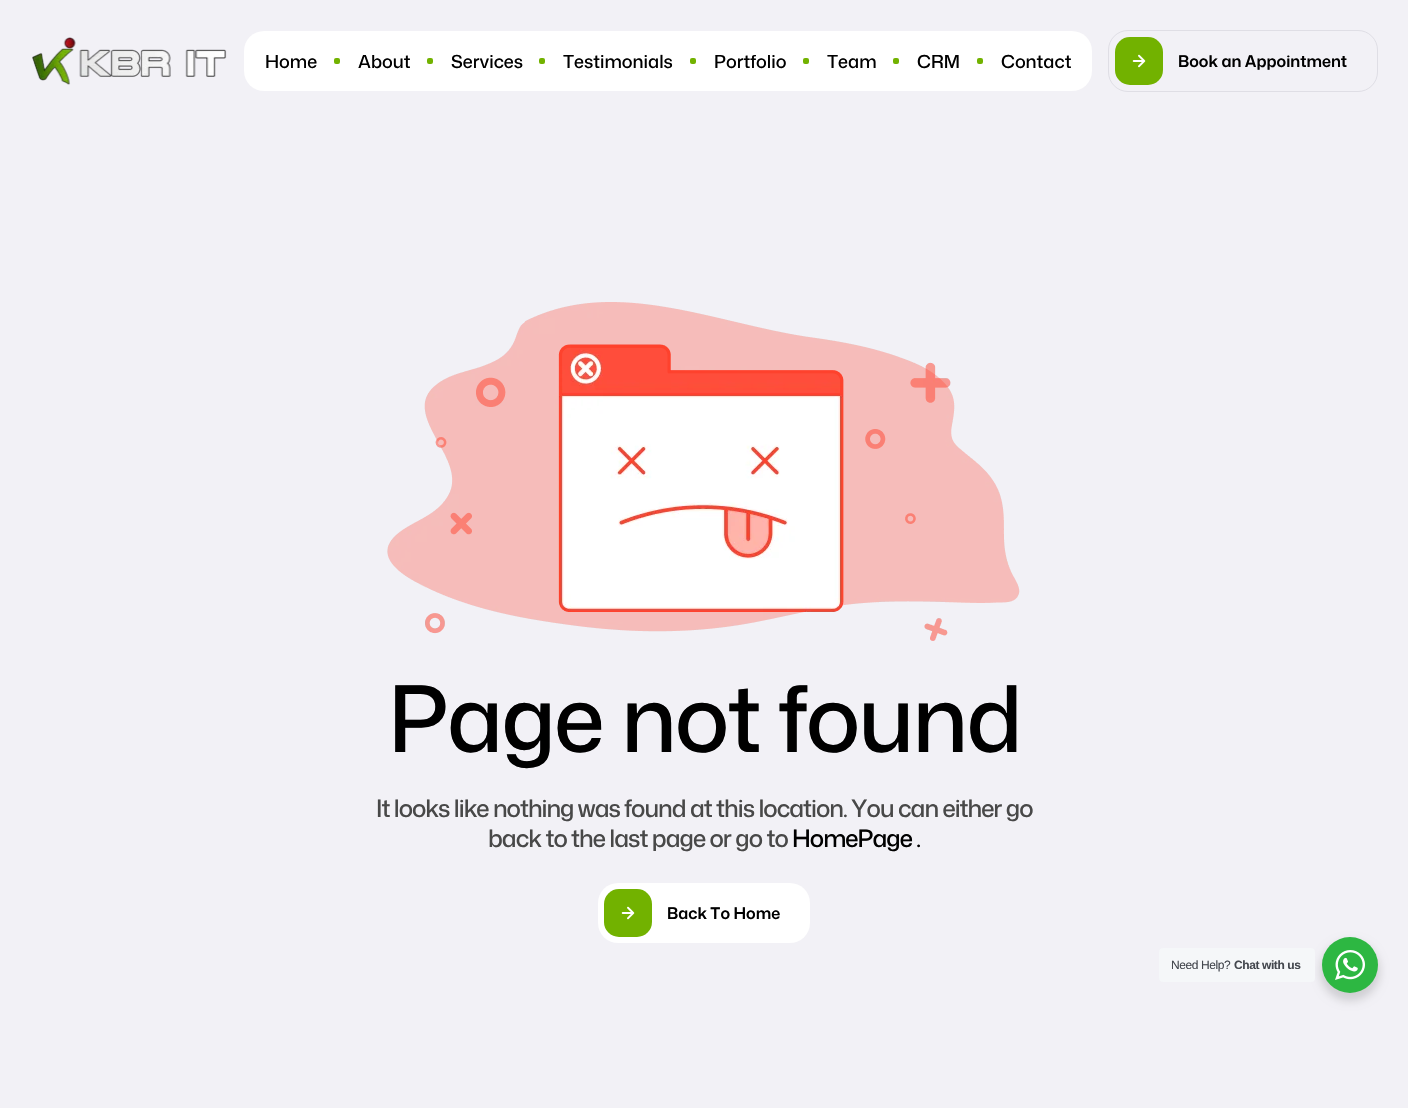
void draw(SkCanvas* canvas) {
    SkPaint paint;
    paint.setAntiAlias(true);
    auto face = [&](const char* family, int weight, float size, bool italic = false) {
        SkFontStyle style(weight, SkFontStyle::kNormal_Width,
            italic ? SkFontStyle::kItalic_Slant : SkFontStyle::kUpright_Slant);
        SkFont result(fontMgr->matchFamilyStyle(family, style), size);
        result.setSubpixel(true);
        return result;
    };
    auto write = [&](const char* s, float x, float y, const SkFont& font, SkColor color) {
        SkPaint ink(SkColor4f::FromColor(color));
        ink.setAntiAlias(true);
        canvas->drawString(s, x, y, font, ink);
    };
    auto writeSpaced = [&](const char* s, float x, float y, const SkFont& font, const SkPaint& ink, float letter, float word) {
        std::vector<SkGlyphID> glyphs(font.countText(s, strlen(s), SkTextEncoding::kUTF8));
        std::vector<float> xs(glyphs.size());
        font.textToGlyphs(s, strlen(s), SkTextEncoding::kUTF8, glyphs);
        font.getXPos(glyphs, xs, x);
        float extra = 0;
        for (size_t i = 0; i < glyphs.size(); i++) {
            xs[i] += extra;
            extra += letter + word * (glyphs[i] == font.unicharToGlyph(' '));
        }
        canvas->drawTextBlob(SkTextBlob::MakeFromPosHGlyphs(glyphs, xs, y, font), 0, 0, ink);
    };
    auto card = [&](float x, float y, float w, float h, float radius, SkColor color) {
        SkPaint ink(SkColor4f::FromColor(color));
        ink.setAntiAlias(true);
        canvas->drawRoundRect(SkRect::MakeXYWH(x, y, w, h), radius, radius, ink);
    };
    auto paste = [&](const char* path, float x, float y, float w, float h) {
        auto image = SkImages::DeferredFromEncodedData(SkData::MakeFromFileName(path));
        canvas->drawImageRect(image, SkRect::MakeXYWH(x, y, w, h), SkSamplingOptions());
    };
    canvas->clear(SkColorSetRGB(242, 241, 246));
    paste("pic1.png", 32, 37, 195, 48);
    card(244, 31, 848, 60, 20, SK_ColorWHITE);
    auto kFont1 = face("Mona Sans", 500, 18);
    write("Home", 265, 68, kFont1, SK_ColorBLACK);
    card(334, 58, 6, 6, 2, SkColorSetRGB(114, 178, 0));
    write("About", 358, 68, kFont1, SK_ColorBLACK);
    card(427, 58, 6, 6, 2, SkColorSetRGB(114, 178, 0));
    write("Services", 451, 68, kFont1, SK_ColorBLACK);
    card(539, 58, 6, 6, 2, SkColorSetRGB(114, 178, 0));
    write("Testimonials", 563, 68, kFont1, SK_ColorBLACK);
    card(690, 58, 6, 6, 2, SkColorSetRGB(114, 178, 0));
    write("Portfolio", 714, 68, kFont1, SK_ColorBLACK);
    card(803, 58, 6, 6, 2, SkColorSetRGB(114, 178, 0));
    write("Team", 827, 68, kFont1, SK_ColorBLACK);
    card(893, 58, 6, 6, 2, SkColorSetRGB(114, 178, 0));
    write("CRM", 917, 68, kFont1, SK_ColorBLACK);
    card(977, 58, 6, 6, 2, SkColorSetRGB(114, 178, 0));
    write("Contact", 1001, 68, kFont1, SK_ColorBLACK);
    paint.setStyle(SkPaint::kStroke_Style);
    paint.setStrokeWidth(1);
    paint.setColor(SkColorSetRGB(223, 222, 229));
    canvas->drawRoundRect(SkRect::MakeXYWH(1108.5f, 30.5f, 269, 61), 19.5f, 19.5f, paint);
    card(1115, 37, 48, 48, 15, SkColorSetRGB(114, 178, 0));
    paste("pic2.png", 1132, 54, 14, 14);
    auto kFont2 = face("Mona Sans", 600, 16);
    write("Book an Appointment", 1178, 67, kFont2, SK_ColorBLACK);
    paste("pic3.png", 387, 302, 633, 339);
    auto kFont3 = face("Mona Sans", 500, 91.5f);
    paint.setStyle(SkPaint::kFill_Style);
    paint.setColor(SK_ColorBLACK);
    writeSpaced("Page not found", 388, 752, kFont3, paint, -2, 0);
    auto kFont4 = face("Mona Sans", 500, 24);
    paint.setColor(SkColorSetRGB(72, 72, 72));
    writeSpaced("It looks like nothing was found at this location. You can either go", 376, 817, kFont4, paint, -1, 0);
    writeSpaced("back to the last page or go to", 488, 847, kFont4, paint, -1, 0);
    paint.setColor(SK_ColorBLACK);
    writeSpaced("HomePage .", 792, 847, kFont4, paint, -1, 0);
    card(598, 883, 212, 60, 20, SK_ColorWHITE);
    card(604, 889, 48, 48, 15, SkColorSetRGB(114, 178, 0));
    paste("pic2.png", 621, 906, 14, 14);
    write("Back To Home", 667, 919, kFont2, SK_ColorBLACK);
    paint.setColor(SkColorSetARGB(36, 0, 0, 0));
    paint.setMaskFilter(SkMaskFilter::MakeBlur(kNormal_SkBlurStyle, 4));
    canvas->drawRoundRect(SkRect::MakeXYWH(1320, 941, 60, 60), 30, 30, paint);
    paint.setMaskFilter(nullptr);
    card(1159, 948, 156, 34, 4, SkColorSetRGB(245, 247, 249));
    auto kFont5 = face("Liberation Sans", 400, 12);
    paint.setColor(SkColorSetRGB(67, 71, 78));
    writeSpaced("Need Help?", 1171, 969, kFont5, paint, -0.4f, 0);
    auto kFont6 = face("Liberation Sans", 700, 12);
    writeSpaced("Chat with us", 1234, 969, kFont6, paint, -0.4f, 0);
    paint.setColor(SkColorSetRGB(45, 183, 66));
    canvas->drawCircle(1350, 965, 28, paint);
    paste("pic4.png", 1335, 950, 30, 30);
}
